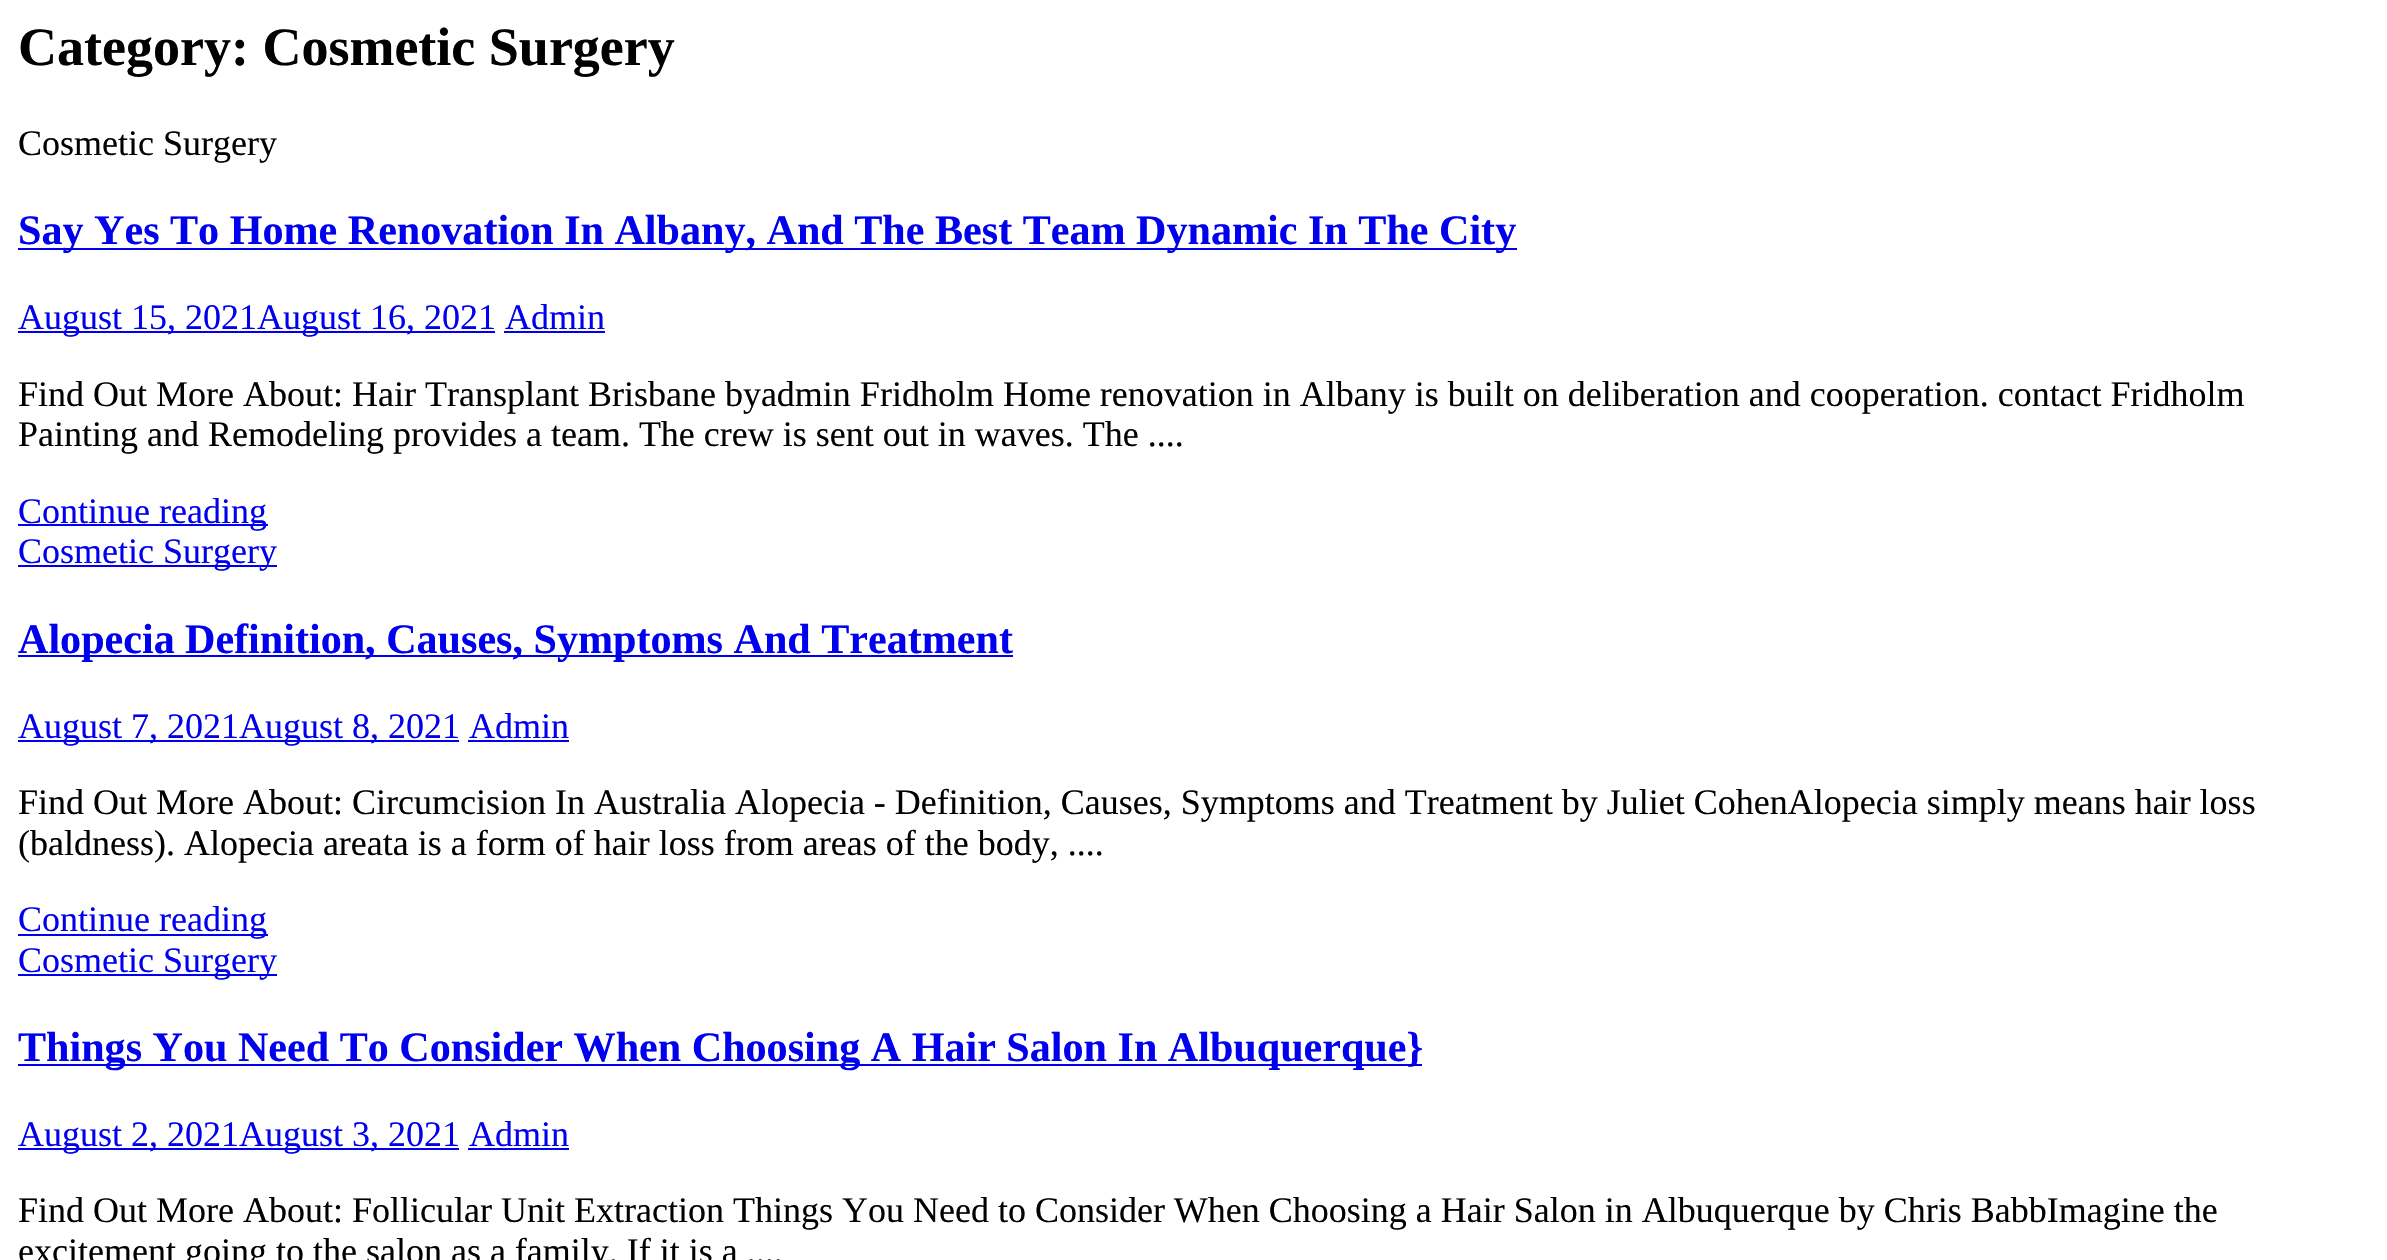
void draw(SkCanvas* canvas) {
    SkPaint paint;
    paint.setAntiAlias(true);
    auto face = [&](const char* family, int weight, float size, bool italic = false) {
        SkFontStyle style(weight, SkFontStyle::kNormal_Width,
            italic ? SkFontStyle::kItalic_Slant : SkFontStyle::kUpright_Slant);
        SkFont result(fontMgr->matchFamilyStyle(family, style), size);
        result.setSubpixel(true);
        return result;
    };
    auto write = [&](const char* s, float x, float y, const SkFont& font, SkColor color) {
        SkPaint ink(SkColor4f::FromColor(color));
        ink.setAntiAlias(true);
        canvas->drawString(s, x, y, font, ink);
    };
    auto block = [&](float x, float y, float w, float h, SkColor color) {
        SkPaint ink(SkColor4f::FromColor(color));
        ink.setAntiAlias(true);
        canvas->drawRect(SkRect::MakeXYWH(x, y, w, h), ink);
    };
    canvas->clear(SK_ColorWHITE);
    auto kFont1 = face("Liberation Serif", 700, 54);
    write("Category: Cosmetic Surgery", 18, 65, kFont1, SK_ColorBLACK);
    auto kFont2 = face("Liberation Serif", 400, 36);
    write("Cosmetic Surgery", 18, 155, kFont2, SK_ColorBLACK);
    block(18, 248, 1499, 2, SkColorSetRGB(0, 0, 238));
    auto kFont3 = face("Liberation Serif", 700, 42.1f);
    write("Say Yes To Home Renovation In Albany, And The Best Team Dynamic In The City", 18, 244, kFont3, SkColorSetRGB(0, 0, 238));
    block(18, 331, 477, 2, SkColorSetRGB(0, 0, 238));
    write("August 15, 2021August 16, 2021 Admin", 18, 329, kFont2, SkColorSetRGB(0, 0, 238));
    block(504, 331, 101, 2, SkColorSetRGB(0, 0, 238));
    write("Find Out More About: Hair Transplant Brisbane byadmin Fridholm Home renovation in Albany is built on deliberation and cooperation. contact Fridholm", 18, 406, kFont2, SK_ColorBLACK);
    write("Painting and Remodeling provides a team. The crew is sent out in waves. The ....", 18, 446, kFont2, SK_ColorBLACK);
    block(18, 524, 250, 2, SkColorSetRGB(0, 0, 238));
    write("Continue reading", 18, 523, kFont2, SkColorSetRGB(0, 0, 238));
    block(18, 565, 259, 2, SkColorSetRGB(0, 0, 238));
    write("Cosmetic Surgery", 18, 563, kFont2, SkColorSetRGB(0, 0, 238));
    block(18, 655, 995, 2, SkColorSetRGB(0, 0, 238));
    write("Alopecia", 18, 653, kFont3, SkColorSetRGB(0, 0, 238));
    write("Definition, Causes, Symptoms And Treatment", 185, 653, kFont3, SkColorSetRGB(0, 0, 238));
    block(18, 740, 441, 2, SkColorSetRGB(0, 0, 238));
    write("August 7, 2021August 8, 2021 Admin", 18, 738, kFont2, SkColorSetRGB(0, 0, 238));
    block(468, 740, 101, 2, SkColorSetRGB(0, 0, 238));
    write("Find Out More About: Circumcision In Australia Alopecia - Definition, Causes, Symptoms and Treatment by Juliet CohenAlopecia simply means hair loss", 18, 814, kFont2, SK_ColorBLACK);
    write("(baldness). Alopecia areata is a form of hair loss from areas of the body, ....", 18, 855, kFont2, SK_ColorBLACK);
    block(18, 934, 250, 2, SkColorSetRGB(0, 0, 238));
    write("Continue reading", 18, 931, kFont2, SkColorSetRGB(0, 0, 238));
    block(18, 974, 259, 2, SkColorSetRGB(0, 0, 238));
    write("Cosmetic Surgery", 18, 972, kFont2, SkColorSetRGB(0, 0, 238));
    block(18, 1064, 1404, 2, SkColorSetRGB(0, 0, 238));
    write("Things You Need To Consider When Choosing A Hair Salon In Albuquerque}", 18, 1061, kFont3, SkColorSetRGB(0, 0, 238));
    block(18, 1148, 441, 2, SkColorSetRGB(0, 0, 238));
    write("August 2, 2021August 3, 2021 Admin", 18, 1146, kFont2, SkColorSetRGB(0, 0, 238));
    block(468, 1148, 101, 2, SkColorSetRGB(0, 0, 238));
    write("Find Out More About: Follicular Unit Extraction Things You Need to Consider When Choosing a Hair Salon in Albuquerque by Chris BabbImagine the", 18, 1222, kFont2, SK_ColorBLACK);
    write("excitement going to the salon as a family. If it is a ....", 18, 1263, kFont2, SK_ColorBLACK);
}
